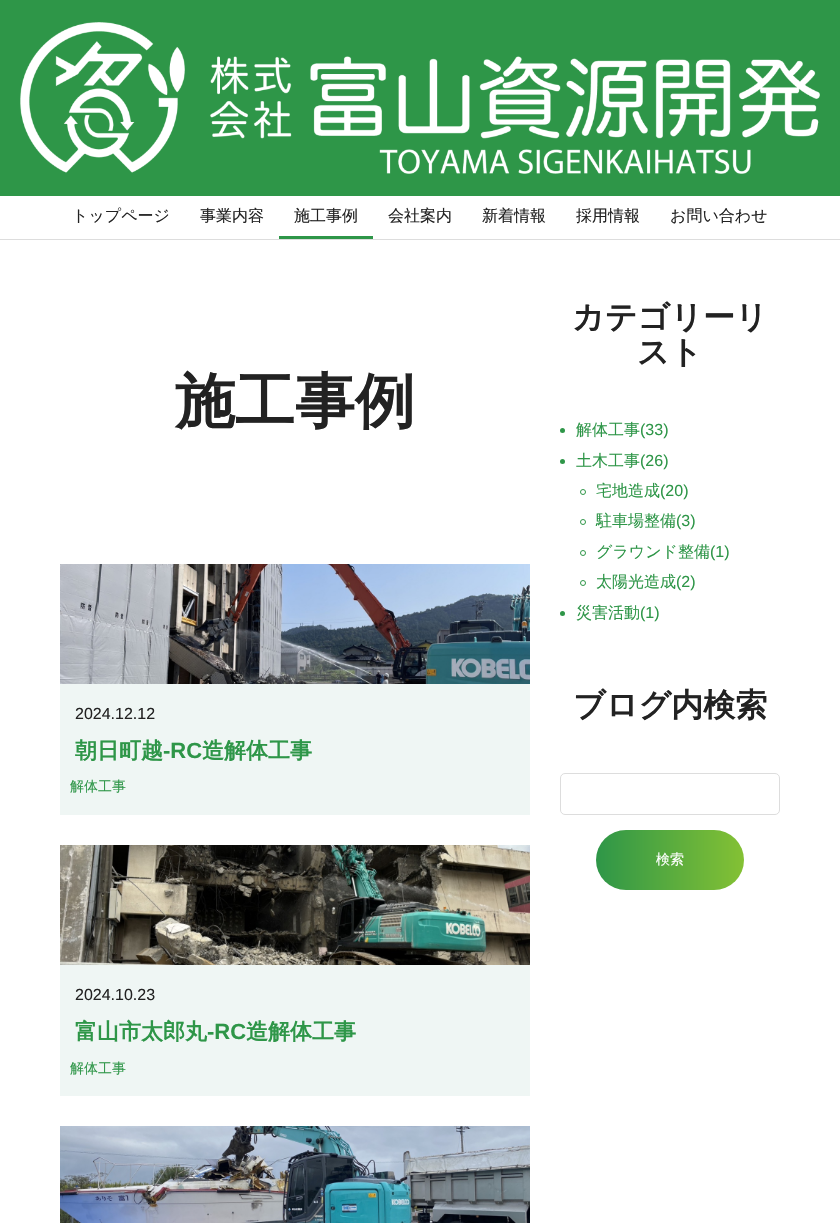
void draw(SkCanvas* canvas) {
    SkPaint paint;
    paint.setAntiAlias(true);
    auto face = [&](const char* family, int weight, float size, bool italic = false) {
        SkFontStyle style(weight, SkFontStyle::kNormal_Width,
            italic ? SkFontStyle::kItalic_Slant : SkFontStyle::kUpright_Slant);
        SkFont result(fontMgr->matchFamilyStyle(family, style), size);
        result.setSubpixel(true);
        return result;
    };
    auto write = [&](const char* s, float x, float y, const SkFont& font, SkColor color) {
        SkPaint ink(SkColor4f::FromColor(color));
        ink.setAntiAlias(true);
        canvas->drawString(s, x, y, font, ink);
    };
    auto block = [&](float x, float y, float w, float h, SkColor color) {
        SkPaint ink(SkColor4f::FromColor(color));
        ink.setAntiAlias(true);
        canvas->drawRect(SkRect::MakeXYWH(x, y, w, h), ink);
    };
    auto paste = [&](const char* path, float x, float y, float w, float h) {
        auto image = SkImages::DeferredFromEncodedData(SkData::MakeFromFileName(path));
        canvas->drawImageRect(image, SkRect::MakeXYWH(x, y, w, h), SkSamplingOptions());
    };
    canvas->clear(SK_ColorWHITE);
    block(0, 239, 840, 1, SkColorSetRGB(221, 221, 221));
    block(0, 0, 840, 196, SkColorSetRGB(46, 150, 72));
    paste("pic1.png", 20, 22, 800, 152);
    auto kFont1 = face("WenQuanYi Zen Hei", 500, 16);
    write("トップページ", 72, 221, kFont1, SkColorSetRGB(34, 34, 34));
    write("事業内容", 200, 221, kFont1, SkColorSetRGB(34, 34, 34));
    block(279, 236, 94, 3, SkColorSetRGB(46, 150, 72));
    write("施工事例", 294, 221, kFont1, SkColorSetRGB(34, 34, 34));
    write("会社案内", 388, 221, kFont1, SkColorSetRGB(34, 34, 34));
    write("新着情報", 482, 221, kFont1, SkColorSetRGB(34, 34, 34));
    write("採用情報", 576, 221, kFont1, SkColorSetRGB(34, 34, 34));
    write("お問い合わせ", 670, 221, kFont1, SkColorSetRGB(34, 34, 34));
    auto kFont2 = face("WenQuanYi Zen Hei", 700, 60);
    write("施工事例", 175, 422, kFont2, SkColorSetRGB(34, 34, 34));
    paste("pic2.png", 60, 564, 470, 120);
    block(60, 684, 470, 131, SkColorSetRGB(239, 246, 244));
    auto kFont3 = face("Liberation Sans", 400, 16);
    write("2024.12.12", 75, 719, kFont3, SkColorSetRGB(34, 34, 34));
    auto kFont4 = face("WenQuanYi Zen Hei", 700, 22);
    write("朝日町越", 75, 758, kFont4, SkColorSetRGB(46, 150, 72));
    auto kFont5 = face("Liberation Sans", 700, 22);
    write("-RC", 163, 758, kFont5, SkColorSetRGB(46, 150, 72));
    write("造解体工事", 202, 758, kFont4, SkColorSetRGB(46, 150, 72));
    auto kFont6 = face("WenQuanYi Zen Hei", 500, 14);
    write("解体工事", 70, 791, kFont6, SkColorSetRGB(46, 150, 72));
    paste("pic3.png", 60, 845, 470, 120);
    block(60, 965, 470, 131, SkColorSetRGB(239, 246, 244));
    write("2024.10.23", 75, 1000, kFont3, SkColorSetRGB(34, 34, 34));
    write("富山市太郎丸", 75, 1039, kFont4, SkColorSetRGB(46, 150, 72));
    write("-RC", 207, 1039, kFont5, SkColorSetRGB(46, 150, 72));
    write("造解体工事", 246, 1039, kFont4, SkColorSetRGB(46, 150, 72));
    write("解体工事", 70, 1073, kFont6, SkColorSetRGB(46, 150, 72));
    paste("pic4.png", 60, 1126, 470, 97);
    auto kFont7 = face("WenQuanYi Zen Hei", 700, 32);
    write("カテゴリーリ", 572, 328, kFont7, SkColorSetRGB(34, 34, 34));
    write("スト", 637, 363, kFont7, SkColorSetRGB(34, 34, 34));
    paint.setColor(SkColorSetRGB(46, 150, 72));
    canvas->drawCircle(562.5f, 430.5f, 2.5f, paint);
    write("解体工事", 576, 435, kFont1, SkColorSetRGB(46, 150, 72));
    write("(33)", 640, 435, kFont3, SkColorSetRGB(46, 150, 72));
    canvas->drawCircle(562.5f, 461.5f, 2.5f, paint);
    write("土木工事", 576, 466, kFont1, SkColorSetRGB(46, 150, 72));
    write("(26)", 640, 466, kFont3, SkColorSetRGB(46, 150, 72));
    paint.setStyle(SkPaint::kStroke_Style);
    paint.setStrokeWidth(1);
    canvas->drawCircle(583, 492, 2.5f, paint);
    write("宅地造成", 596, 496, kFont1, SkColorSetRGB(46, 150, 72));
    write("(20)", 660, 496, kFont3, SkColorSetRGB(46, 150, 72));
    canvas->drawCircle(583, 522, 2.5f, paint);
    write("駐車場整備", 596, 526, kFont1, SkColorSetRGB(46, 150, 72));
    write("(3)", 676, 526, kFont3, SkColorSetRGB(46, 150, 72));
    canvas->drawCircle(583, 553, 2.5f, paint);
    write("グラウンド整備", 596, 557, kFont1, SkColorSetRGB(46, 150, 72));
    write("(1)", 710, 557, kFont3, SkColorSetRGB(46, 150, 72));
    canvas->drawCircle(583, 583, 2.5f, paint);
    write("太陽光造成", 596, 587, kFont1, SkColorSetRGB(46, 150, 72));
    write("(2)", 676, 587, kFont3, SkColorSetRGB(46, 150, 72));
    paint.setStyle(SkPaint::kFill_Style);
    canvas->drawCircle(562.5f, 613.5f, 2.5f, paint);
    write("災害活動", 576, 618, kFont1, SkColorSetRGB(46, 150, 72));
    write("(1)", 640, 618, kFont3, SkColorSetRGB(46, 150, 72));
    write("ブログ内検索", 573, 716, kFont7, SkColorSetRGB(34, 34, 34));
    paint.setStyle(SkPaint::kStroke_Style);
    paint.setColor(SkColorSetRGB(221, 221, 221));
    canvas->drawRoundRect(SkRect::MakeXYWH(560.5f, 773.5f, 219, 41), 4.5f, 4.5f, paint);
    paint.setStyle(SkPaint::kFill_Style);
    {
        const SkColor colors[] = {SkColorSetRGB(46, 150, 72), SkColorSetRGB(132, 193, 52)};
        const float stops[] = {0, 1};
        const SkPoint ends[] = {{596, 860}, {744, 860}};
        paint.setShader(SkGradientShader::MakeLinear(ends, colors, stops, 2, SkTileMode::kClamp));
        paint.setAlpha(255);
    }
    canvas->drawRoundRect(SkRect::MakeXYWH(596, 830, 148, 60), 30, 30, paint);
    write("検索", 656, 864, kFont6, SK_ColorWHITE);
}
